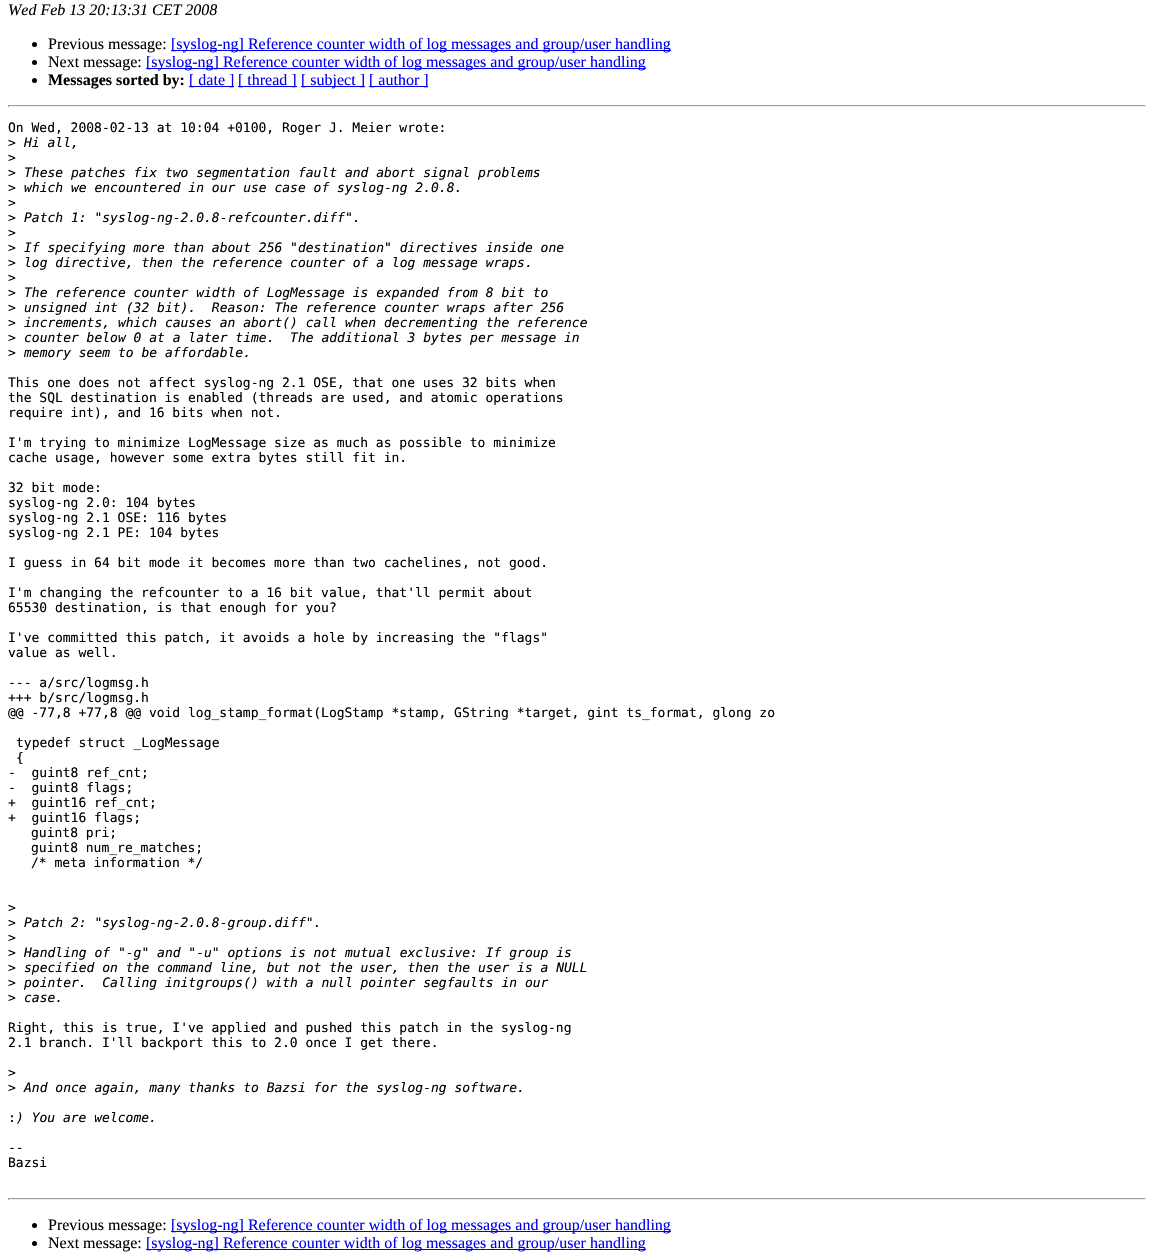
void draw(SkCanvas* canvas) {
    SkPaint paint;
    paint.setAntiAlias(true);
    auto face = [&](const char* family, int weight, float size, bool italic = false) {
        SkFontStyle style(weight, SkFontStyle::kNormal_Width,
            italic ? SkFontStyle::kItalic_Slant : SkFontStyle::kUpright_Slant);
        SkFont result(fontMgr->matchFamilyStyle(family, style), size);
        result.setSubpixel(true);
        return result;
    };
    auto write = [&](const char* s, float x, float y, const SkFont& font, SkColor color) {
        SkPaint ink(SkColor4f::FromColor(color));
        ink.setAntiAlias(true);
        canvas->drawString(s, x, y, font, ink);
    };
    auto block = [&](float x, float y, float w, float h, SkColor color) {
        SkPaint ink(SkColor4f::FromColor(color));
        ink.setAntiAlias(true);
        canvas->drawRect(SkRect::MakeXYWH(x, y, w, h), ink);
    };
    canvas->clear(SK_ColorWHITE);
    auto kFont1 = face("Liberation Serif", 400, 16, true);
    write("Wed Feb 13 20:13:31 CET 2008", 8, 15, kFont1, SK_ColorBLACK);
    paint.setColor(SK_ColorBLACK);
    canvas->drawCircle(34.5f, 44.5f, 2.5f, paint);
    auto kFont2 = face("Liberation Serif", 400, 16);
    write("Previous message:", 48, 49, kFont2, SK_ColorBLACK);
    block(171, 50, 500, 1, SkColorSetRGB(0, 0, 238));
    write("[syslog-ng] Reference counter width of log messages and group/user handling", 171, 49, kFont2, SkColorSetRGB(0, 0, 238));
    canvas->drawCircle(34.5f, 62.5f, 2.5f, paint);
    write("Next message:", 48, 67, kFont2, SK_ColorBLACK);
    block(146, 68, 500, 1, SkColorSetRGB(0, 0, 238));
    write("[syslog-ng] Reference counter width of log messages and group/user handling", 146, 67, kFont2, SkColorSetRGB(0, 0, 238));
    canvas->drawCircle(34.5f, 80.5f, 2.5f, paint);
    auto kFont3 = face("Liberation Serif", 700, 16);
    write("Messages sorted by:", 48, 85, kFont3, SK_ColorBLACK);
    block(189, 86, 45, 1, SkColorSetRGB(0, 0, 238));
    write("[ date ]", 189, 85, kFont2, SkColorSetRGB(0, 0, 238));
    block(238, 86, 59, 1, SkColorSetRGB(0, 0, 238));
    write("[ thread ]", 238, 85, kFont2, SkColorSetRGB(0, 0, 238));
    block(301, 86, 64, 1, SkColorSetRGB(0, 0, 238));
    write("[ subject ]", 301, 85, kFont2, SkColorSetRGB(0, 0, 238));
    block(369, 86, 59, 1, SkColorSetRGB(0, 0, 238));
    write("[ author ]", 369, 85, kFont2, SkColorSetRGB(0, 0, 238));
    block(8, 105, 1138, 1, SkColorSetRGB(159, 159, 159));
    block(1145, 105, 1, 2, SkColorSetRGB(238, 238, 238));
    block(8, 106, 1138, 1, SkColorSetRGB(238, 238, 238));
    block(8, 105, 1, 2, SkColorSetRGB(159, 159, 159));
    auto kFont4 = face("DejaVu Sans Mono", 400, 13);
    write("On Wed, 2008-02-13 at 10:04 +0100, Roger J. Meier wrote:", 8, 132, kFont4, SK_ColorBLACK);
    write(">", 8, 147, kFont4, SK_ColorBLACK);
    auto kFont5 = face("DejaVu Sans Mono", 400, 13, true);
    write("Hi all,", 24, 147, kFont5, SK_ColorBLACK);
    write(">", 8, 162, kFont4, SK_ColorBLACK);
    write(">", 8, 177, kFont4, SK_ColorBLACK);
    write("These patches fix two segmentation fault and abort signal problems", 24, 177, kFont5, SK_ColorBLACK);
    write(">", 8, 192, kFont4, SK_ColorBLACK);
    write("which we encountered in our use case of syslog-ng 2.0.8.", 24, 192, kFont5, SK_ColorBLACK);
    write(">", 8, 207, kFont4, SK_ColorBLACK);
    write(">", 8, 222, kFont4, SK_ColorBLACK);
    write("Patch 1: \"syslog-ng-2.0.8-refcounter.diff\".", 24, 222, kFont5, SK_ColorBLACK);
    write(">", 8, 237, kFont4, SK_ColorBLACK);
    write(">", 8, 252, kFont4, SK_ColorBLACK);
    write("If specifying more than about 256 \"destination\" directives inside one", 24, 252, kFont5, SK_ColorBLACK);
    write(">", 8, 267, kFont4, SK_ColorBLACK);
    write("log directive, then the reference counter of a log message wraps.", 24, 267, kFont5, SK_ColorBLACK);
    write(">", 8, 282, kFont4, SK_ColorBLACK);
    write(">", 8, 297, kFont4, SK_ColorBLACK);
    write("The reference counter width of LogMessage is expanded from 8 bit to", 24, 297, kFont5, SK_ColorBLACK);
    write(">", 8, 312, kFont4, SK_ColorBLACK);
    write("unsigned int (32 bit).  Reason: The reference counter wraps after 256", 24, 312, kFont5, SK_ColorBLACK);
    write(">", 8, 327, kFont4, SK_ColorBLACK);
    write("increments, which causes an abort() call when decrementing the reference", 24, 327, kFont5, SK_ColorBLACK);
    write(">", 8, 342, kFont4, SK_ColorBLACK);
    write("counter below 0 at a later time.  The additional 3 bytes per message in", 24, 342, kFont5, SK_ColorBLACK);
    write(">", 8, 357, kFont4, SK_ColorBLACK);
    write("memory seem to be affordable.", 24, 357, kFont5, SK_ColorBLACK);
    write("This one does not affect syslog-ng 2.1 OSE, that one uses 32 bits when", 8, 387, kFont4, SK_ColorBLACK);
    write("the SQL destination is enabled (threads are used, and atomic operations", 8, 402, kFont4, SK_ColorBLACK);
    write("require int), and 16 bits when not.", 8, 417, kFont4, SK_ColorBLACK);
    write("I'm trying to minimize LogMessage size as much as possible to minimize", 8, 447, kFont4, SK_ColorBLACK);
    write("cache usage, however some extra bytes still fit in.", 8, 462, kFont4, SK_ColorBLACK);
    write("32 bit mode:", 8, 492, kFont4, SK_ColorBLACK);
    write("syslog-ng 2.0: 104 bytes", 8, 507, kFont4, SK_ColorBLACK);
    write("syslog-ng 2.1 OSE: 116 bytes", 8, 522, kFont4, SK_ColorBLACK);
    write("syslog-ng 2.1 PE: 104 bytes", 8, 537, kFont4, SK_ColorBLACK);
    write("I guess in 64 bit mode it becomes more than two cachelines, not good.", 8, 567, kFont4, SK_ColorBLACK);
    write("I'm changing the refcounter to a 16 bit value, that'll permit about", 8, 597, kFont4, SK_ColorBLACK);
    write("65530 destination, is that enough for you?", 8, 612, kFont4, SK_ColorBLACK);
    write("I've committed this patch, it avoids a hole by increasing the \"flags\"", 8, 642, kFont4, SK_ColorBLACK);
    write("value as well.", 8, 657, kFont4, SK_ColorBLACK);
    write("--- a/src/logmsg.h", 8, 687, kFont4, SK_ColorBLACK);
    write("+++ b/src/logmsg.h", 8, 702, kFont4, SK_ColorBLACK);
    write("@@ -77,8 +77,8 @@ void log_stamp_format(LogStamp *stamp, GString *target, gint ts_format, glong zo", 8, 717, kFont4, SK_ColorBLACK);
    write("typedef struct _LogMessage", 16, 747, kFont4, SK_ColorBLACK);
    write("{", 16, 762, kFont4, SK_ColorBLACK);
    write("-  guint8 ref_cnt;", 8, 777, kFont4, SK_ColorBLACK);
    write("-  guint8 flags;", 8, 792, kFont4, SK_ColorBLACK);
    write("+  guint16 ref_cnt;", 8, 807, kFont4, SK_ColorBLACK);
    write("+  guint16 flags;", 8, 822, kFont4, SK_ColorBLACK);
    write("guint8 pri;", 31, 837, kFont4, SK_ColorBLACK);
    write("guint8 num_re_matches;", 31, 852, kFont4, SK_ColorBLACK);
    write("/* meta information */", 31, 867, kFont4, SK_ColorBLACK);
    write(">", 8, 912, kFont4, SK_ColorBLACK);
    write(">", 8, 927, kFont4, SK_ColorBLACK);
    write("Patch 2: \"syslog-ng-2.0.8-group.diff\".", 24, 927, kFont5, SK_ColorBLACK);
    write(">", 8, 942, kFont4, SK_ColorBLACK);
    write(">", 8, 957, kFont4, SK_ColorBLACK);
    write("Handling of \"-g\" and \"-u\" options is not mutual exclusive: If group is", 24, 957, kFont5, SK_ColorBLACK);
    write(">", 8, 972, kFont4, SK_ColorBLACK);
    write("specified on the command line, but not the user, then the user is a NULL", 24, 972, kFont5, SK_ColorBLACK);
    write(">", 8, 987, kFont4, SK_ColorBLACK);
    write("pointer.  Calling initgroups() with a null pointer segfaults in our", 24, 987, kFont5, SK_ColorBLACK);
    write(">", 8, 1002, kFont4, SK_ColorBLACK);
    write("case.", 24, 1002, kFont5, SK_ColorBLACK);
    write("Right, this is true, I've applied and pushed this patch in the syslog-ng", 8, 1032, kFont4, SK_ColorBLACK);
    write("2.1 branch. I'll backport this to 2.0 once I get there.", 8, 1047, kFont4, SK_ColorBLACK);
    write(">", 8, 1077, kFont4, SK_ColorBLACK);
    write(">", 8, 1092, kFont4, SK_ColorBLACK);
    write("And once again, many thanks to Bazsi for the syslog-ng software.", 24, 1092, kFont5, SK_ColorBLACK);
    write(":", 8, 1122, kFont4, SK_ColorBLACK);
    write(") You are welcome.", 16, 1122, kFont5, SK_ColorBLACK);
    write("--", 8, 1152, kFont4, SK_ColorBLACK);
    write("Bazsi", 8, 1167, kFont4, SK_ColorBLACK);
    block(8, 1198, 1138, 1, SkColorSetRGB(159, 159, 159));
    block(1145, 1198, 1, 2, SkColorSetRGB(238, 238, 238));
    block(8, 1199, 1138, 1, SkColorSetRGB(238, 238, 238));
    block(8, 1198, 1, 2, SkColorSetRGB(159, 159, 159));
    canvas->drawCircle(34.5f, 1225.5f, 2.5f, paint);
    write("Previous message:", 48, 1230, kFont2, SK_ColorBLACK);
    block(171, 1231, 500, 1, SkColorSetRGB(0, 0, 238));
    write("[syslog-ng] Reference counter width of log messages and group/user handling", 171, 1230, kFont2, SkColorSetRGB(0, 0, 238));
    canvas->drawCircle(34.5f, 1243.5f, 2.5f, paint);
    write("Next message:", 48, 1248, kFont2, SK_ColorBLACK);
    block(146, 1249, 500, 1, SkColorSetRGB(0, 0, 238));
    write("[syslog-ng] Reference counter width of log messages and group/user handling", 146, 1248, kFont2, SkColorSetRGB(0, 0, 238));
}
